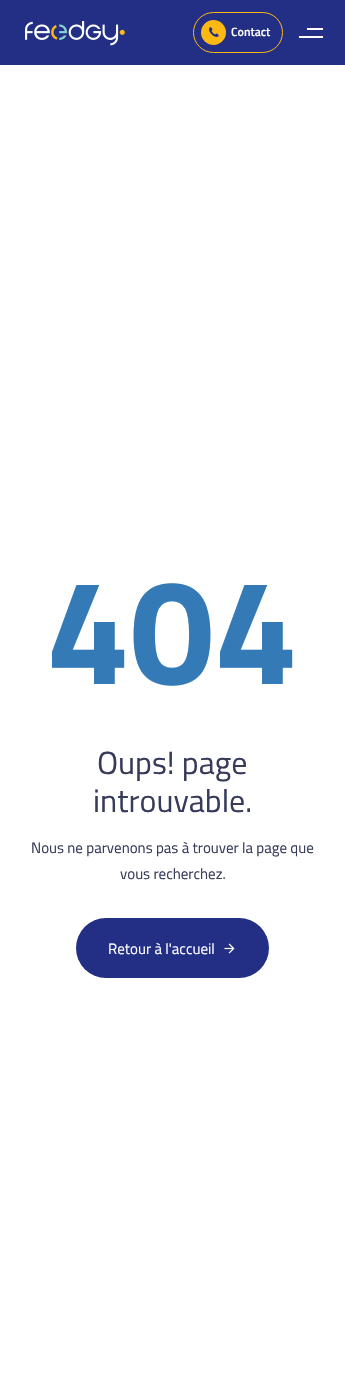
void draw(SkCanvas* canvas) {
    SkPaint paint;
    paint.setAntiAlias(true);
    auto face = [&](const char* family, int weight, float size, bool italic = false) {
        SkFontStyle style(weight, SkFontStyle::kNormal_Width,
            italic ? SkFontStyle::kItalic_Slant : SkFontStyle::kUpright_Slant);
        SkFont result(fontMgr->matchFamilyStyle(family, style), size);
        result.setSubpixel(true);
        return result;
    };
    auto write = [&](const char* s, float x, float y, const SkFont& font, SkColor color) {
        SkPaint ink(SkColor4f::FromColor(color));
        ink.setAntiAlias(true);
        canvas->drawString(s, x, y, font, ink);
    };
    auto block = [&](float x, float y, float w, float h, SkColor color) {
        SkPaint ink(SkColor4f::FromColor(color));
        ink.setAntiAlias(true);
        canvas->drawRect(SkRect::MakeXYWH(x, y, w, h), ink);
    };
    auto card = [&](float x, float y, float w, float h, float radius, SkColor color) {
        SkPaint ink(SkColor4f::FromColor(color));
        ink.setAntiAlias(true);
        canvas->drawRoundRect(SkRect::MakeXYWH(x, y, w, h), radius, radius, ink);
    };
    auto paste = [&](const char* path, float x, float y, float w, float h) {
        auto image = SkImages::DeferredFromEncodedData(SkData::MakeFromFileName(path));
        canvas->drawImageRect(image, SkRect::MakeXYWH(x, y, w, h), SkSamplingOptions());
    };
    canvas->clear(SK_ColorWHITE);
    block(0, 0, 345, 65, SkColorSetRGB(35, 47, 132));
    paste("pic1.png", 25, 21, 100, 25);
    paint.setStyle(SkPaint::kStroke_Style);
    paint.setStrokeWidth(1);
    paint.setColor(SkColorSetRGB(253, 185, 19));
    canvas->drawRoundRect(SkRect::MakeXYWH(193.5f, 12.5f, 89, 40), 20, 20, paint);
    paste("pic2.png", 201, 20, 25, 25);
    auto kFont1 = face("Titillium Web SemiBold", 600, 12);
    write("Contact", 231, 36, kFont1, SK_ColorWHITE);
    block(307, 28, 16, 2, SK_ColorWHITE);
    block(299, 36, 24, 2, SK_ColorWHITE);
    auto kFont2 = face("Titillium Web", 700, 150);
    write("404", 46, 684, kFont2, SkColorSetRGB(51, 122, 183));
    auto kFont3 = face("Titillium Web", 400, 32);
    write("Oups! page", 97, 774, kFont3, SkColorSetRGB(55, 60, 91));
    write("introuvable.", 93, 812, kFont3, SkColorSetRGB(55, 60, 91));
    auto kFont4 = face("Titillium Web", 400, 15);
    write("Nous ne parvenons pas à trouver la page que", 31, 853, kFont4, SkColorSetRGB(55, 60, 91));
    write("vous recherchez.", 120, 879, kFont4, SkColorSetRGB(55, 60, 91));
    card(76, 918, 193, 60, 30, SkColorSetRGB(35, 47, 132));
    write("Retour à l'accueil", 108, 954, kFont4, SK_ColorWHITE);
    paste("pic3.png", 224, 943, 11, 11);
}
